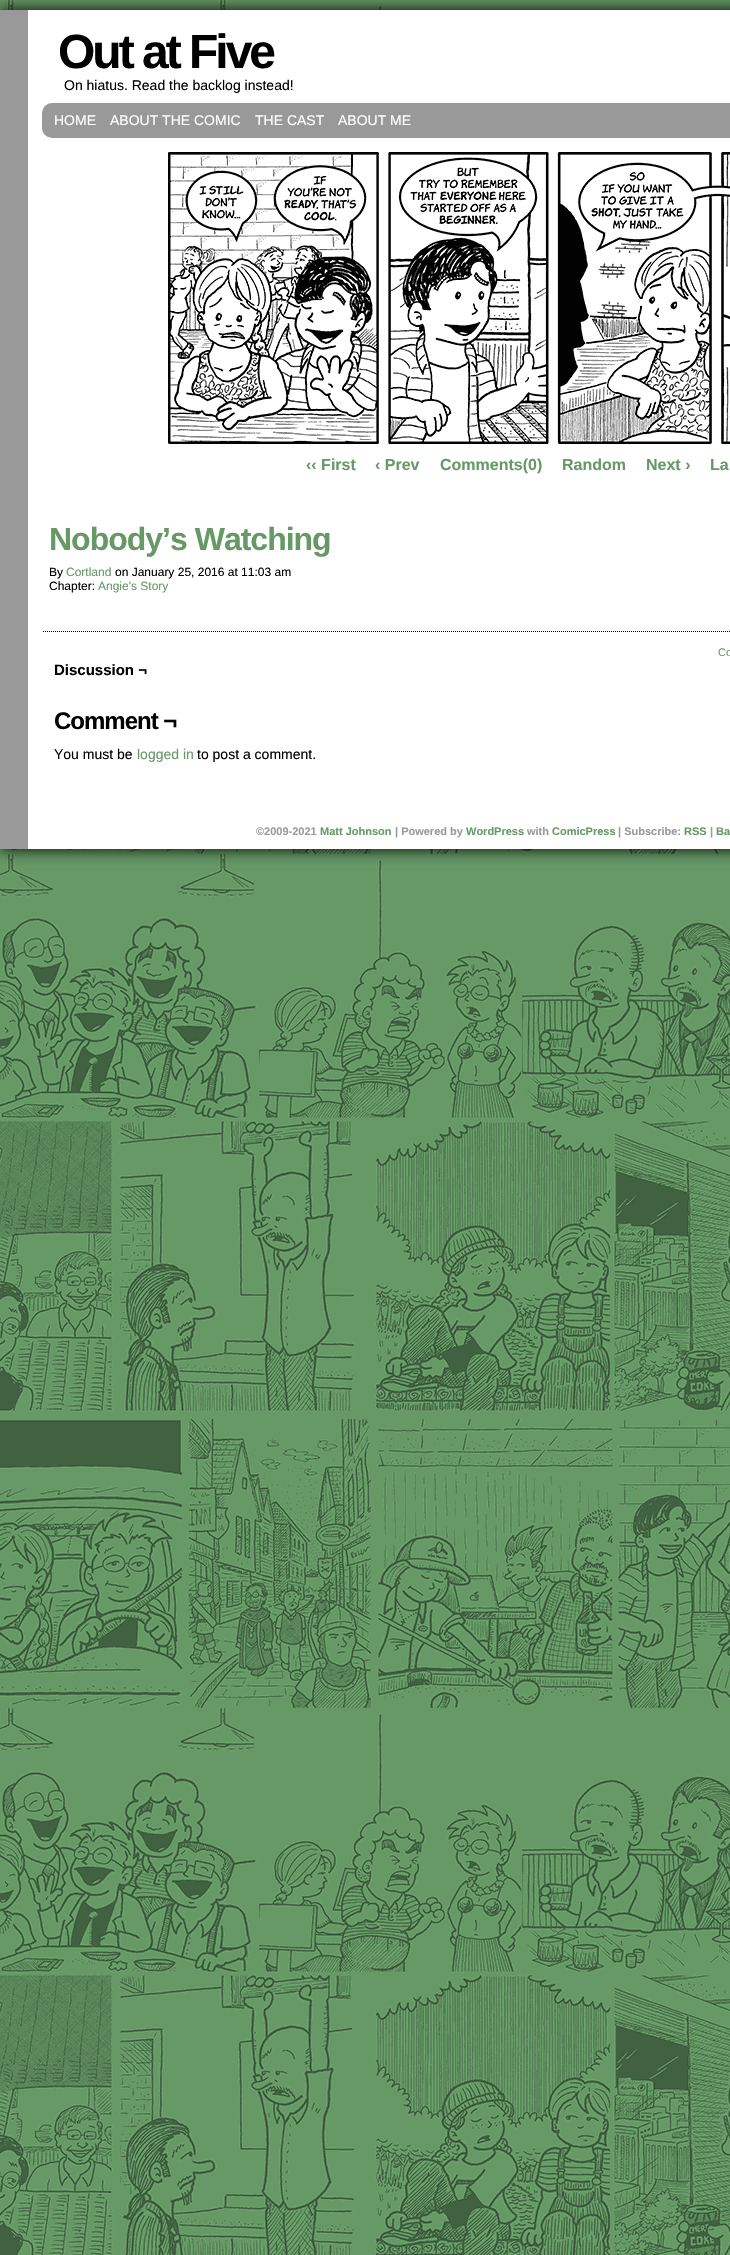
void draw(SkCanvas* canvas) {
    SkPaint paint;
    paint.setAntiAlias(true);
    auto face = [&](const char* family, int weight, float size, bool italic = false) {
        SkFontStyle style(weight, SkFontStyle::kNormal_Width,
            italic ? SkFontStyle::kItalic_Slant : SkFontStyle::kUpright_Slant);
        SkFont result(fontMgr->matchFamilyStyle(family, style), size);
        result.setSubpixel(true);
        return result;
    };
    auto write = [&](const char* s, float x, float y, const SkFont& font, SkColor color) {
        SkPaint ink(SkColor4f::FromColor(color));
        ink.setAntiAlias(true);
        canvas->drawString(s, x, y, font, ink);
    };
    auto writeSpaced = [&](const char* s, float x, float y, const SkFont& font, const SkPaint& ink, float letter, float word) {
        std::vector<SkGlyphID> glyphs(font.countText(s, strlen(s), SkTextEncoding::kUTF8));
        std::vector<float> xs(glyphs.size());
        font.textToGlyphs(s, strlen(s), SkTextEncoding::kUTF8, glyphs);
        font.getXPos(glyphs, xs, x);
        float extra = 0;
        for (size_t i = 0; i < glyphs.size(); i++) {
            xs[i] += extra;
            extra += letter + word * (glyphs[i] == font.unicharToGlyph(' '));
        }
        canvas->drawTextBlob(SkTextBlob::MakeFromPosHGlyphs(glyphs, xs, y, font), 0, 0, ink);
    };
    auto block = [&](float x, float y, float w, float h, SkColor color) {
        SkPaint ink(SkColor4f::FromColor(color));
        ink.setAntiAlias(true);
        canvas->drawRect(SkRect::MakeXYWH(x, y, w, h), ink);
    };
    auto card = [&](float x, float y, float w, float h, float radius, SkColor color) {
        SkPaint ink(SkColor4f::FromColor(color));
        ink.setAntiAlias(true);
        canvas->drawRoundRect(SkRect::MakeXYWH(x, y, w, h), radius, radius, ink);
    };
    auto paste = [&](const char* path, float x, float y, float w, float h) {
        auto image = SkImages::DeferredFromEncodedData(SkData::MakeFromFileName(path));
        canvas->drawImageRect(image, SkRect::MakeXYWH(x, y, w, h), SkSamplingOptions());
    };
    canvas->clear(SK_ColorWHITE);
    paste("pic1.png", 0, 0, 730, 2255);
    paint.setColor(SK_ColorBLACK);
    paint.setMaskFilter(SkMaskFilter::MakeBlur(kNormal_SkBlurStyle, 7.5f));
    canvas->drawRect(SkRect::MakeXYWH(0, 10, 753, 839), paint);
    paint.setMaskFilter(nullptr);
    block(28, 10, 702, 839, SK_ColorWHITE);
    block(0, 10, 28, 839, SkColorSetRGB(153, 153, 153));
    auto kFont1 = face("Liberation Sans", 700, 48);
    writeSpaced("Out at Five", 58, 68, kFont1, paint, -3, 0);
    auto kFont2 = face("Liberation Sans", 400, 14);
    write("On hiatus. Read the backlog instead!", 64, 90, kFont2, SK_ColorBLACK);
    card(42, 103, 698, 35, 10, SkColorSetRGB(153, 153, 153));
    write("HOME", 54, 125, kFont2, SK_ColorWHITE);
    write("ABOUT THE COMIC", 110, 125, kFont2, SK_ColorWHITE);
    write("THE CAST", 255, 125, kFont2, SK_ColorWHITE);
    write("ABOUT ME", 338, 125, kFont2, SK_ColorWHITE);
    paste("pic2.png", 168, 152, 562, 292);
    auto kFont3 = face("Liberation Sans", 700, 16);
    write("‹‹ First", 306, 470, kFont3, SkColorSetRGB(102, 153, 102));
    write("‹ Prev", 375, 470, kFont3, SkColorSetRGB(102, 153, 102));
    write("Comments(0)", 440, 470, kFont3, SkColorSetRGB(102, 153, 102));
    write("Random", 562, 470, kFont3, SkColorSetRGB(102, 153, 102));
    write("Next ›", 646, 470, kFont3, SkColorSetRGB(102, 153, 102));
    write("La", 710, 470, kFont3, SkColorSetRGB(102, 153, 102));
    paint.setStyle(SkPaint::kStroke_Style);
    paint.setStrokeWidth(1);
    paint.setPathEffect(SkDashPathEffect::Make({{1, 1}}, 0));
    canvas->drawPath(SkPathBuilder().moveTo(43, 631.5f).lineTo(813, 631.5f).detach(), paint);
    paint.setPathEffect(nullptr);
    auto kFont4 = face("Liberation Sans", 700, 32);
    paint.setStyle(SkPaint::kFill_Style);
    paint.setColor(SkColorSetRGB(102, 153, 102));
    writeSpaced("Nobody’s Watching", 49, 550, kFont4, paint, -1, 0);
    auto kFont5 = face("Liberation Sans", 400, 12);
    write("By", 49, 576, kFont5, SK_ColorBLACK);
    write("Cortland", 66, 576, kFont5, SkColorSetRGB(102, 153, 102));
    write("on January 25, 2016 at 11:03 am", 115, 576, kFont5, SK_ColorBLACK);
    write("Chapter:", 49, 590, kFont5, SK_ColorBLACK);
    write("Angie's Story", 98, 590, kFont5, SkColorSetRGB(102, 153, 102));
    auto kFont6 = face("Liberation Sans", 400, 11);
    write("Co", 718, 656, kFont6, SkColorSetRGB(102, 153, 102));
    auto kFont7 = face("Liberation Sans", 700, 15);
    write("Discussion ¬", 54, 675, kFont7, SK_ColorBLACK);
    auto kFont8 = face("Liberation Sans", 700, 24);
    paint.setColor(SK_ColorBLACK);
    writeSpaced("Comment ¬", 54, 729, kFont8, paint, -1, 0);
    write("You must be", 54, 759, kFont2, SK_ColorBLACK);
    write("logged in", 137, 759, kFont2, SkColorSetRGB(102, 153, 102));
    write("to post a comment.", 197, 759, kFont2, SK_ColorBLACK);
    auto kFont9 = face("Liberation Sans", 700, 11);
    write("©2009-2021", 256, 835, kFont9, SkColorSetRGB(153, 153, 153));
    write("Matt Johnson", 320, 835, kFont9, SkColorSetRGB(102, 153, 102));
    write("| Powered by", 395, 835, kFont9, SkColorSetRGB(153, 153, 153));
    write("WordPress", 466, 835, kFont9, SkColorSetRGB(102, 153, 102));
    write("with", 527, 835, kFont9, SkColorSetRGB(153, 153, 153));
    write("ComicPress", 552, 835, kFont9, SkColorSetRGB(102, 153, 102));
    write("| Subscribe:", 618, 835, kFont9, SkColorSetRGB(153, 153, 153));
    write("RSS", 684, 835, kFont9, SkColorSetRGB(102, 153, 102));
    write("|", 710, 835, kFont9, SkColorSetRGB(153, 153, 153));
    write("Ba", 716, 835, kFont9, SkColorSetRGB(102, 153, 102));
}
